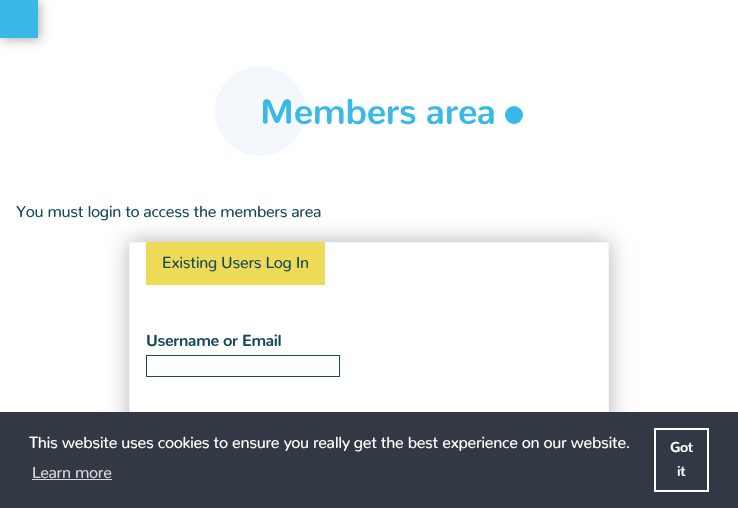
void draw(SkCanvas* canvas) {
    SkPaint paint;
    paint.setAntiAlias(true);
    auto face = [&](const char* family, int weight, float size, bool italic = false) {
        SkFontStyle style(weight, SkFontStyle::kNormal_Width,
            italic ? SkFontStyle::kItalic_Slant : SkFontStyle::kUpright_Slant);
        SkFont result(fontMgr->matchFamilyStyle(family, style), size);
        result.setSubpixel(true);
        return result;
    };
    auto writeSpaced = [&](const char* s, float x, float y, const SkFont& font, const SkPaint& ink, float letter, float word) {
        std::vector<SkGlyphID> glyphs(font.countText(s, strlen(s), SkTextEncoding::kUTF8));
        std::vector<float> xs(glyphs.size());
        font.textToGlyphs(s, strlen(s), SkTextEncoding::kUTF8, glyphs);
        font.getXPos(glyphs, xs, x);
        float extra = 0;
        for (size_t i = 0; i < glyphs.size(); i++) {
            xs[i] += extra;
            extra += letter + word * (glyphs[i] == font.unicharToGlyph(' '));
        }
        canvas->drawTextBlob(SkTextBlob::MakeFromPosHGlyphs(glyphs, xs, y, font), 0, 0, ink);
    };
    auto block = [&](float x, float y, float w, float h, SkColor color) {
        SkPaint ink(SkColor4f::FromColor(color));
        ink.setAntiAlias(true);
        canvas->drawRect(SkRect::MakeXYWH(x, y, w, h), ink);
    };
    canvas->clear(SK_ColorWHITE);
    paint.setColor(SkColorSetARGB(77, 0, 0, 0));
    paint.setMaskFilter(SkMaskFilter::MakeBlur(kNormal_SkBlurStyle, 5));
    canvas->drawRect(SkRect::MakeXYWH(2, 2, 38, 38), paint);
    paint.setMaskFilter(nullptr);
    block(0, 0, 38, 38, SkColorSetRGB(57, 185, 229));
    paint.setColor(SkColorSetRGB(244, 248, 252));
    canvas->drawCircle(260, 111, 45, paint);
    auto kFont1 = face("Nunito", 700, 36);
    paint.setColor(SkColorSetRGB(57, 185, 229));
    writeSpaced("Members area", 260, 124, kFont1, paint, -0.32f, 0);
    canvas->drawCircle(514, 115, 9, paint);
    canvas->save();
    canvas->clipPath(SkPathBuilder(SkPathFillType::kEvenOdd).moveTo(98, 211).lineTo(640, 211).lineTo(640, 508).lineTo(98, 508).close().moveTo(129, 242).lineTo(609, 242).lineTo(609, 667).lineTo(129, 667).close().detach(), true);
    paint.setColor(SkColorSetARGB(77, 0, 0, 0));
    paint.setMaskFilter(SkMaskFilter::MakeBlur(kNormal_SkBlurStyle, 10));
    canvas->drawRect(SkRect::MakeXYWH(129, 242, 480, 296), paint);
    paint.setMaskFilter(nullptr);
    canvas->restore();
    auto kFont2 = face("Nunito", 400, 16);
    paint.setColor(SkColorSetRGB(22, 74, 93));
    writeSpaced("You must login to access the members area", 16, 217, kFont2, paint, -0.32f, 0);
    paint.setStyle(SkPaint::kStroke_Style);
    paint.setStrokeWidth(1);
    paint.setColor(SkColorSetRGB(244, 248, 252));
    canvas->drawRect(SkRect::MakeXYWH(129.5f, 242.5f, 479, 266), paint);
    block(146, 242, 179, 43, SkColorSetRGB(237, 218, 86));
    paint.setStyle(SkPaint::kFill_Style);
    paint.setColor(SkColorSetRGB(22, 74, 93));
    writeSpaced("Existing Users Log In", 162, 268, kFont2, paint, -0.32f, 0);
    auto kFont3 = face("Nunito", 700, 16);
    writeSpaced("Username or Email", 146, 346, kFont3, paint, -0.32f, 0);
    paint.setStyle(SkPaint::kStroke_Style);
    canvas->drawRect(SkRect::MakeXYWH(146.5f, 355.5f, 193, 21), paint);
    block(0, 412, 738, 96, SkColorSetRGB(50, 57, 68));
    paint.setStyle(SkPaint::kFill_Style);
    paint.setColor(SK_ColorWHITE);
    writeSpaced("This website uses cookies to ensure you really get the best experience on our website.", 29, 448, kFont2, paint, -0.32f, 0);
    paint.setColor(SkColorSetRGB(214, 215, 218));
    writeSpaced("Learn more", 32, 478, kFont2, paint, -0.32f, 0);
    block(32, 479, 80, 1, SkColorSetRGB(214, 215, 218));
    paint.setStyle(SkPaint::kStroke_Style);
    paint.setStrokeWidth(2);
    paint.setColor(SK_ColorWHITE);
    canvas->drawRect(SkRect::MakeXYWH(655, 429, 53, 62), paint);
    auto kFont4 = face("Nunito", 700, 14);
    paint.setStyle(SkPaint::kFill_Style);
    writeSpaced("Got", 670, 452, kFont4, paint, -0.32f, 0);
    writeSpaced("it", 677, 476, kFont4, paint, -0.32f, 0);
}
